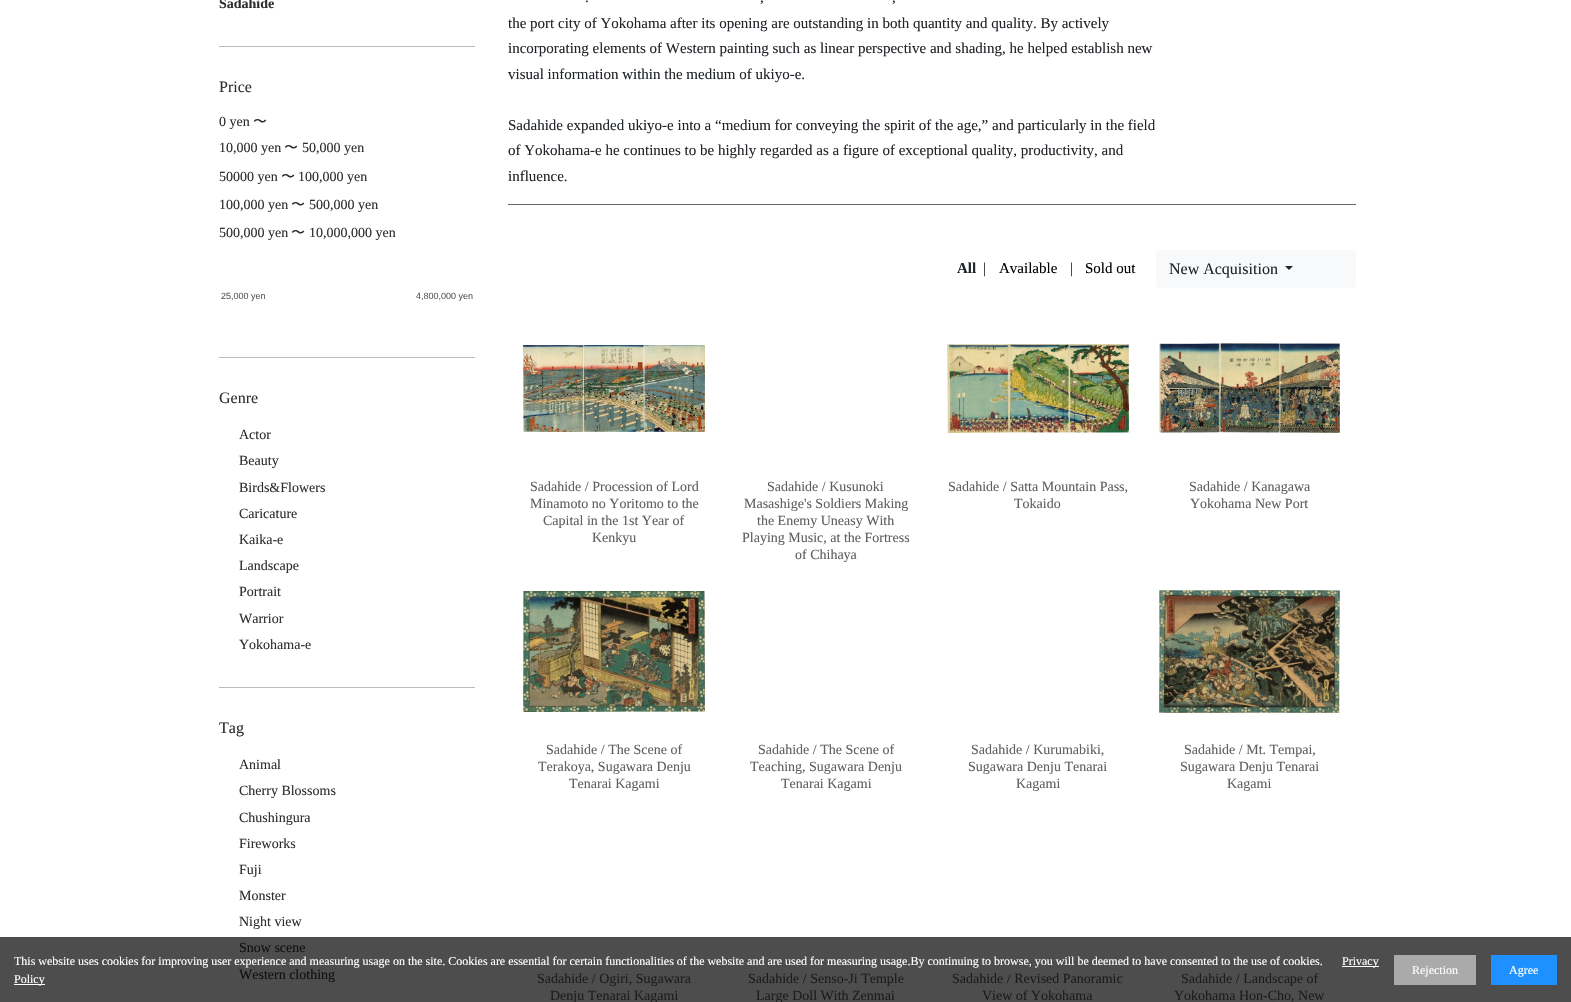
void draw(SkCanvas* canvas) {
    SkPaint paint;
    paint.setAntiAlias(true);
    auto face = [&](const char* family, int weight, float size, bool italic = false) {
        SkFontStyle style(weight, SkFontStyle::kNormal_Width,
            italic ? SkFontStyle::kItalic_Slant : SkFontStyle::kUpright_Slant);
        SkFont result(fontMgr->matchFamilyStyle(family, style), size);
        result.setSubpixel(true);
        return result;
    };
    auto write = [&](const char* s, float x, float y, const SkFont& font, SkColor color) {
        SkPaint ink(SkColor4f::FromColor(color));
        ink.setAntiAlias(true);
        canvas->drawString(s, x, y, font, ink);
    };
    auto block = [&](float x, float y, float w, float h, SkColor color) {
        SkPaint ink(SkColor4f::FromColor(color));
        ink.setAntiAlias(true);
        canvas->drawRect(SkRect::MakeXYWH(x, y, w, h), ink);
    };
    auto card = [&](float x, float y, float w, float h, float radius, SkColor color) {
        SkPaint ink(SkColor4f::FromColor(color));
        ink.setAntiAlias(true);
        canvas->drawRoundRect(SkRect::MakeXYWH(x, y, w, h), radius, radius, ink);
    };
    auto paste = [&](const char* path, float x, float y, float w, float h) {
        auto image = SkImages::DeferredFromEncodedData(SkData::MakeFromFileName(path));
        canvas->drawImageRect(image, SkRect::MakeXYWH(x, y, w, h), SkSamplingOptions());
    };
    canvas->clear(SK_ColorWHITE);
    block(0, 937, 1571, 65, SkColorSetRGB(77, 77, 77));
    block(219, 46, 256, 1, SkColorSetRGB(187, 187, 187));
    auto kFont1 = face("Liberation Serif", 700, 14);
    write("Sadahide", 219, 8, kFont1, SkColorSetRGB(47, 46, 46));
    auto kFont2 = face("Liberation Serif", 400, 16);
    write("Price", 219, 92, kFont2, SkColorSetRGB(47, 46, 46));
    auto kFont3 = face("Liberation Serif", 400, 14);
    write("0 yen", 219, 126, kFont3, SkColorSetRGB(47, 46, 46));
    auto kFont4 = face("WenQuanYi Zen Hei", 500, 14);
    write("〜", 253, 126, kFont4, SkColorSetRGB(47, 46, 46));
    write("10,000 yen", 219, 152, kFont3, SkColorSetRGB(47, 46, 46));
    write("〜", 284, 152, kFont4, SkColorSetRGB(47, 46, 46));
    write("50,000 yen", 302, 152, kFont3, SkColorSetRGB(47, 46, 46));
    write("50000 yen", 219, 181, kFont3, SkColorSetRGB(47, 46, 46));
    write("〜", 281, 181, kFont4, SkColorSetRGB(47, 46, 46));
    write("100,000 yen", 298, 181, kFont3, SkColorSetRGB(47, 46, 46));
    write("100,000 yen", 219, 209, kFont3, SkColorSetRGB(47, 46, 46));
    write("〜", 291, 209, kFont4, SkColorSetRGB(47, 46, 46));
    write("500,000 yen", 309, 209, kFont3, SkColorSetRGB(47, 46, 46));
    write("500,000 yen", 219, 237, kFont3, SkColorSetRGB(47, 46, 46));
    write("〜", 291, 237, kFont4, SkColorSetRGB(47, 46, 46));
    write("10,000,000 yen", 309, 237, kFont3, SkColorSetRGB(47, 46, 46));
    block(219, 357, 256, 1, SkColorSetRGB(187, 187, 187));
    auto kFont5 = face("Liberation Sans", 400, 9);
    write("25,000 yen", 221, 299, kFont5, SkColorSetRGB(89, 88, 88));
    write("4,800,000 yen", 416, 299, kFont5, SkColorSetRGB(89, 88, 88));
    write("Genre", 219, 403, kFont2, SkColorSetRGB(47, 46, 46));
    block(219, 687, 256, 1, SkColorSetRGB(187, 187, 187));
    write("Actor", 239, 439, kFont3, SkColorSetRGB(47, 46, 46));
    write("Beauty", 239, 465, kFont3, SkColorSetRGB(47, 46, 46));
    write("Birds&Flowers", 239, 492, kFont3, SkColorSetRGB(47, 46, 46));
    write("Caricature", 239, 518, kFont3, SkColorSetRGB(47, 46, 46));
    write("Kaika-e", 239, 544, kFont3, SkColorSetRGB(47, 46, 46));
    write("Landscape", 239, 570, kFont3, SkColorSetRGB(47, 46, 46));
    write("Portrait", 239, 596, kFont3, SkColorSetRGB(47, 46, 46));
    write("Warrior", 239, 623, kFont3, SkColorSetRGB(47, 46, 46));
    write("Yokohama-e", 239, 649, kFont3, SkColorSetRGB(47, 46, 46));
    write("Tag", 219, 733, kFont2, SkColorSetRGB(47, 46, 46));
    write("Animal", 239, 769, kFont3, SkColorSetRGB(47, 46, 46));
    write("Cherry Blossoms", 239, 795, kFont3, SkColorSetRGB(47, 46, 46));
    write("Chushingura", 239, 822, kFont3, SkColorSetRGB(47, 46, 46));
    write("Fireworks", 239, 848, kFont3, SkColorSetRGB(47, 46, 46));
    write("Fuji", 239, 874, kFont3, SkColorSetRGB(47, 46, 46));
    write("Monster", 239, 900, kFont3, SkColorSetRGB(47, 46, 46));
    write("Night view", 239, 926, kFont3, SkColorSetRGB(47, 46, 46));
    write("Snow scene", 239, 952, kFont3, SkColorSetRGB(15, 15, 15));
    write("Western clothing", 239, 979, kFont3, SkColorSetRGB(15, 15, 15));
    block(508, 204, 848, 1, SkColorSetRGB(102, 102, 102));
    auto kFont6 = face("Liberation Serif", 400, 15);
    write(".", 585, 2, kFont6, SkColorSetRGB(33, 37, 41));
    write(",", 760, 2, kFont6, SkColorSetRGB(33, 37, 41));
    write(",", 892, 2, kFont6, SkColorSetRGB(33, 37, 41));
    write("the port city of Yokohama after its opening are outstanding in both quantity and quality. By actively", 508, 28, kFont6, SkColorSetRGB(33, 37, 41));
    write("incorporating elements of Western painting such as linear perspective and shading, he helped establish new", 508, 53, kFont6, SkColorSetRGB(33, 37, 41));
    write("visual information within the medium of ukiyo-e.", 508, 79, kFont6, SkColorSetRGB(33, 37, 41));
    write("Sadahide expanded ukiyo-e into a “medium for conveying the spirit of the age,” and particularly in the field", 508, 130, kFont6, SkColorSetRGB(33, 37, 41));
    write("of Yokohama-e he continues to be highly regarded as a figure of exceptional quality, productivity, and", 508, 155, kFont6, SkColorSetRGB(33, 37, 41));
    write("influence.", 508, 181, kFont6, SkColorSetRGB(33, 37, 41));
    auto kFont7 = face("Liberation Serif", 700, 15);
    write("All", 957, 273, kFont7, SkColorSetRGB(33, 37, 41));
    write("|", 983, 273, kFont6, SkColorSetRGB(33, 37, 41));
    write("Available", 999, 273, kFont6, SK_ColorBLACK);
    write("|", 1070, 273, kFont6, SkColorSetRGB(33, 37, 41));
    write("Sold out", 1085, 273, kFont6, SK_ColorBLACK);
    card(1156, 250, 200, 38, 4, SkColorSetRGB(248, 249, 250));
    write("New Acquisition", 1169, 274, kFont2, SkColorSetRGB(33, 37, 41));
    paint.setColor(SkColorSetRGB(33, 37, 41));
    canvas->drawPath(SkPathBuilder().moveTo(1285, 266).lineTo(1293, 266).lineTo(1289, 270).close().detach(), paint);
    paste("pic1.png", 523, 345, 182, 87);
    write("Sadahide / Procession of Lord", 530, 491, kFont3, SkColorSetRGB(96, 94, 94));
    write("Minamoto no Yoritomo to the", 530, 508, kFont3, SkColorSetRGB(96, 94, 94));
    write("Capital in the 1st Year of", 543, 525, kFont3, SkColorSetRGB(96, 94, 94));
    write("Kenkyu", 592, 542, kFont3, SkColorSetRGB(96, 94, 94));
    write("Sadahide / Kusunoki", 767, 491, kFont3, SkColorSetRGB(96, 94, 94));
    write("Masashige's Soldiers Making", 744, 508, kFont3, SkColorSetRGB(96, 94, 94));
    write("the Enemy Uneasy With", 757, 525, kFont3, SkColorSetRGB(96, 94, 94));
    write("Playing Music, at the Fortress", 742, 542, kFont3, SkColorSetRGB(96, 94, 94));
    write("of Chihaya", 795, 559, kFont3, SkColorSetRGB(96, 94, 94));
    paste("pic2.png", 947, 344, 182, 89);
    write("Sadahide / Satta Mountain Pass,", 948, 491, kFont3, SkColorSetRGB(96, 94, 94));
    write("Tokaido", 1014, 508, kFont3, SkColorSetRGB(96, 94, 94));
    paste("pic3.png", 1159, 343, 181, 90);
    write("Sadahide / Kanagawa", 1189, 491, kFont3, SkColorSetRGB(96, 94, 94));
    write("Yokohama New Port", 1190, 508, kFont3, SkColorSetRGB(96, 94, 94));
    paste("pic4.png", 523, 591, 182, 121);
    write("Sadahide / The Scene of", 546, 754, kFont3, SkColorSetRGB(96, 94, 94));
    write("Terakoya, Sugawara Denju", 538, 771, kFont3, SkColorSetRGB(96, 94, 94));
    write("Tenarai Kagami", 569, 788, kFont3, SkColorSetRGB(96, 94, 94));
    write("Sadahide / The Scene of", 758, 754, kFont3, SkColorSetRGB(96, 94, 94));
    write("Teaching, Sugawara Denju", 750, 771, kFont3, SkColorSetRGB(96, 94, 94));
    write("Tenarai Kagami", 781, 788, kFont3, SkColorSetRGB(96, 94, 94));
    write("Sadahide / Kurumabiki,", 971, 754, kFont3, SkColorSetRGB(96, 94, 94));
    write("Sugawara Denju Tenarai", 968, 771, kFont3, SkColorSetRGB(96, 94, 94));
    write("Kagami", 1016, 788, kFont3, SkColorSetRGB(96, 94, 94));
    paste("pic5.png", 1159, 590, 181, 123);
    write("Sadahide / Mt. Tempai,", 1184, 754, kFont3, SkColorSetRGB(96, 94, 94));
    write("Sugawara Denju Tenarai", 1180, 771, kFont3, SkColorSetRGB(96, 94, 94));
    write("Kagami", 1227, 788, kFont3, SkColorSetRGB(96, 94, 94));
    write("Sadahide / Ogiri, Sugawara", 537, 983, kFont3, SkColorSetRGB(29, 28, 28));
    write("Denju Tenarai Kagami", 550, 1000, kFont3, SkColorSetRGB(29, 28, 28));
    write("Sadahide / Senso-Ji Temple", 748, 983, kFont3, SkColorSetRGB(29, 28, 28));
    write("Large Doll With Zenmai", 756, 1000, kFont3, SkColorSetRGB(29, 28, 28));
    write("Sadahide / Revised Panoramic", 952, 983, kFont3, SkColorSetRGB(29, 28, 28));
    write("View of Yokohama", 982, 1000, kFont3, SkColorSetRGB(29, 28, 28));
    write("Sadahide / Landscape of", 1181, 983, kFont3, SkColorSetRGB(29, 28, 28));
    write("Yokohama Hon-Cho, New", 1174, 1000, kFont3, SkColorSetRGB(29, 28, 28));
    auto kFont8 = face("Liberation Serif", 400, 12);
    write("This website uses cookies for improving user experience and measuring usage on the site. Cookies are essential for certain functionalities of the website and are used for measuring usage.By continuing to browse, you will be deemed to have consented to the use of cookies.", 14, 965, kFont8, SK_ColorWHITE);
    block(1342, 966, 37, 1, SK_ColorWHITE);
    write("Privacy", 1342, 965, kFont8, SK_ColorWHITE);
    block(14, 984, 31, 1, SK_ColorWHITE);
    write("Policy", 14, 983, kFont8, SK_ColorWHITE);
    block(1394, 955, 82, 30, SkColorSetRGB(170, 170, 170));
    write("Rejection", 1412, 974, kFont8, SK_ColorWHITE);
    block(1491, 955, 66, 30, SkColorSetRGB(30, 144, 255));
    write("Agree", 1509, 974, kFont8, SK_ColorWHITE);
}
